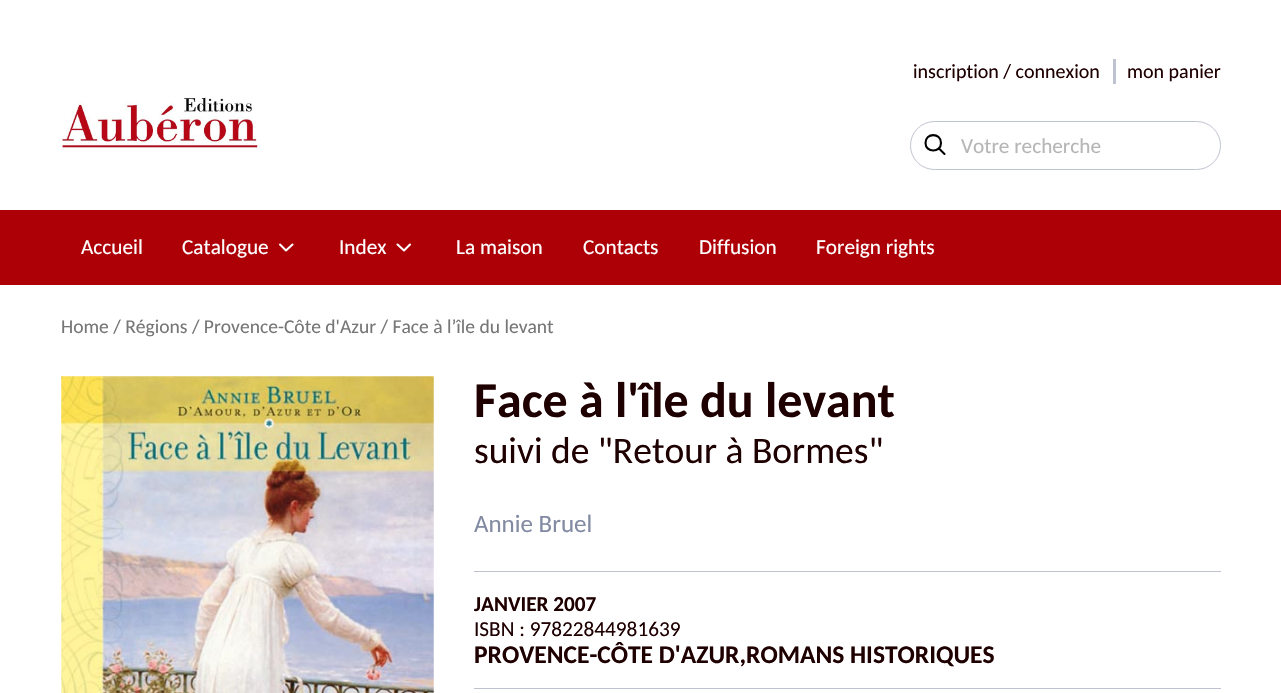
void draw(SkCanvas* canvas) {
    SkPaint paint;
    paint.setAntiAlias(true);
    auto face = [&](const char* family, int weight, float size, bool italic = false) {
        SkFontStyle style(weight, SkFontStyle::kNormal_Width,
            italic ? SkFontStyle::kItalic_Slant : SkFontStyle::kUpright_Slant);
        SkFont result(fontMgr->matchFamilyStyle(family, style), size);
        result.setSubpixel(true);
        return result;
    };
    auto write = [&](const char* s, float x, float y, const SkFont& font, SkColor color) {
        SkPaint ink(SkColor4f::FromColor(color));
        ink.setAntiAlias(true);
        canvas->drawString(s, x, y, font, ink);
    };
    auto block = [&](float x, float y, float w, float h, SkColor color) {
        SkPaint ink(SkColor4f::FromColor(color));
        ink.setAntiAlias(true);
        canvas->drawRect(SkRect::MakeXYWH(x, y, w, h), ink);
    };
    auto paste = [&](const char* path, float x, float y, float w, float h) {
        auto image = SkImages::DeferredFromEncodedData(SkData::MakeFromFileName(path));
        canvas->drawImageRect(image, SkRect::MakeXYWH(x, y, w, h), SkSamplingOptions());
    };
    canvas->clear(SK_ColorWHITE);
    paste("pic1.png", 61, 97, 200, 53);
    auto kFont1 = face("Carlito", 400, 20);
    write("inscription / connexion", 913, 78, kFont1, SkColorSetRGB(31, 0, 1));
    block(1113, 59, 3, 25, SkColorSetRGB(191, 195, 207));
    write("mon panier", 1127, 78, kFont1, SkColorSetRGB(31, 0, 1));
    paint.setStyle(SkPaint::kStroke_Style);
    paint.setStrokeWidth(1);
    paint.setColor(SkColorSetRGB(191, 195, 207));
    canvas->drawRoundRect(SkRect::MakeXYWH(910.5f, 121.5f, 310, 48), 24, 24, paint);
    paint.setStrokeWidth(2.1f);
    paint.setStrokeCap(SkPaint::kRound_Cap);
    paint.setStrokeJoin(SkPaint::kRound_Join);
    paint.setColor(SK_ColorBLACK);
    canvas->drawPath(SkPathBuilder().moveTo(939, 148.5f).lineTo(944.5f, 154).moveTo(941, 143).cubicTo(941, 153, 925.5f, 153, 925.5f, 143).cubicTo(925.5f, 132.5f, 941, 132.5f, 941, 143).close().detach(), paint);
    auto kFont2 = face("Carlito", 400, 21.25f);
    write("Votre recherche", 961, 153, kFont2, SkColorSetRGB(182, 182, 182));
    block(0, 210, 1281, 75, SkColorSetRGB(173, 0, 6));
    write("Accueil", 81, 254, kFont2, SK_ColorWHITE);
    write("Catalogue", 182, 254, kFont2, SK_ColorWHITE);
    paint.setColor(SK_ColorWHITE);
    canvas->drawPath(SkPathBuilder().moveTo(280, 244.5f).lineTo(286, 250.5f).lineTo(292.5f, 244.5f).detach(), paint);
    write("Index", 339, 254, kFont2, SK_ColorWHITE);
    canvas->drawPath(SkPathBuilder().moveTo(397.5f, 244.5f).lineTo(404, 250.5f).lineTo(410, 244.5f).detach(), paint);
    write("La maison", 456, 254, kFont2, SK_ColorWHITE);
    write("Contacts", 583, 254, kFont2, SK_ColorWHITE);
    write("Diffusion", 699, 254, kFont2, SK_ColorWHITE);
    write("Foreign rights", 816, 254, kFont2, SK_ColorWHITE);
    auto kFont3 = face("Carlito", 400, 19.55f);
    write("Home / Régions / Provence-Côte d'Azur / Face à l’île du levant", 61, 333, kFont3, SkColorSetRGB(118, 118, 118));
    paste("pic2.png", 61, 376, 373, 317);
    auto kFont4 = face("Carlito", 700, 50);
    write("Face à l'île du levant", 474, 417, kFont4, SkColorSetRGB(31, 0, 1));
    auto kFont5 = face("Carlito", 400, 37.5f);
    write("suivi de \"Retour à Bormes\"", 474, 463, kFont5, SkColorSetRGB(31, 0, 1));
    auto kFont6 = face("Carlito", 400, 25);
    write("Annie Bruel", 474, 532, kFont6, SkColorSetRGB(131, 139, 163));
    block(474, 571, 747, 1, SkColorSetRGB(191, 195, 207));
    block(474, 688, 747, 1, SkColorSetRGB(191, 195, 207));
    auto kFont7 = face("Carlito", 700, 21.25f);
    write("JANVIER 2007", 474, 611, kFont7, SkColorSetRGB(31, 0, 1));
    write("ISBN : 97822844981639", 474, 636, kFont2, SkColorSetRGB(31, 0, 1));
    auto kFont8 = face("Carlito", 700, 25.5f);
    write("PROVENCE-CÔTE D'AZUR,ROMANS HISTORIQUES", 474, 663, kFont8, SkColorSetRGB(31, 0, 1));
}
